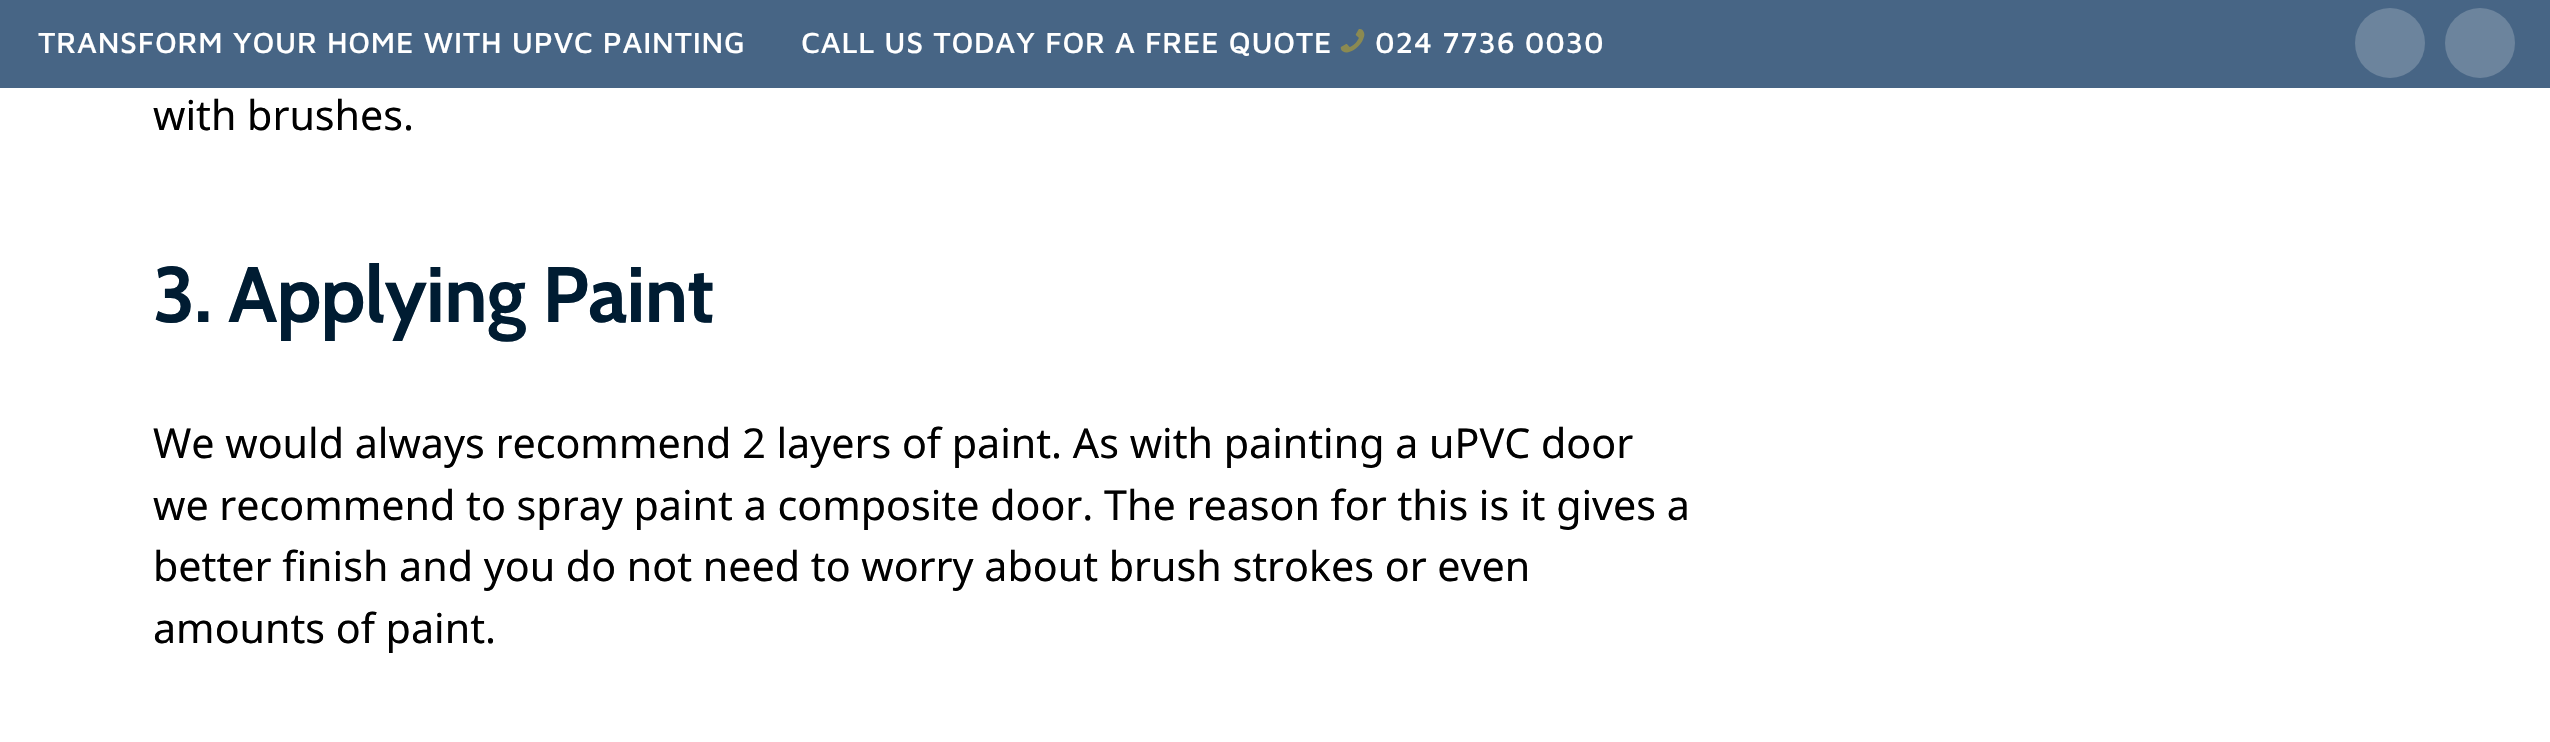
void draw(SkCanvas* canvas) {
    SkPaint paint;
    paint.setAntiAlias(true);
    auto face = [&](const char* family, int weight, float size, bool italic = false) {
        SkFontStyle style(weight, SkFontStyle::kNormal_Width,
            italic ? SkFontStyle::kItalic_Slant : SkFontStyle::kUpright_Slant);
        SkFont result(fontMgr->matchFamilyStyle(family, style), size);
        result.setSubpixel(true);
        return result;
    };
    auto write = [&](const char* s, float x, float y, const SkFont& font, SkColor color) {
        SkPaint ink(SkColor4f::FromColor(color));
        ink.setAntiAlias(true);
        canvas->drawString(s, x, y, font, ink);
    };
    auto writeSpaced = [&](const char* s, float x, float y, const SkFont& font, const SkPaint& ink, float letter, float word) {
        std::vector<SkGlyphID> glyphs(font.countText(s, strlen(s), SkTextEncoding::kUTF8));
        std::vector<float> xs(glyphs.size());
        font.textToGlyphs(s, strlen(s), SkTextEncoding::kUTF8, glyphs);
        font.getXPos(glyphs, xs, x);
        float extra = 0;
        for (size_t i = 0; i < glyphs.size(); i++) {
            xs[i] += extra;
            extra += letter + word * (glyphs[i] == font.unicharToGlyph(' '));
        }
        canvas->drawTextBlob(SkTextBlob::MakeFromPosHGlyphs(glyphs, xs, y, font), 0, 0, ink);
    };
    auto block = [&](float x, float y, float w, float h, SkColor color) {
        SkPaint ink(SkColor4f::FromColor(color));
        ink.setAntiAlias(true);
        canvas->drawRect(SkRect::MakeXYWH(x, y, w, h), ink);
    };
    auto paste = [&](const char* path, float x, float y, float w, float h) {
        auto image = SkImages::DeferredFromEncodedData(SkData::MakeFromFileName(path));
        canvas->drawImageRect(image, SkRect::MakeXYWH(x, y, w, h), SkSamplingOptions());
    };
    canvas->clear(SK_ColorWHITE);
    block(0, 0, 2550, 88, SkColorSetRGB(71, 101, 133));
    auto kFont1 = face("Maven Pro", 500, 30);
    paint.setColor(SK_ColorWHITE);
    writeSpaced("TRANSFORM YOUR HOME WITH UPVC PAINTING      CALL US TODAY FOR A FREE QUOTE", 38, 53, kFont1, paint, 0.75f, 0);
    paste("pic1.png", 1340, 29, 25, 24);
    writeSpaced("024 7736 0030", 1375, 53, kFont1, paint, 0.75f, 0);
    paint.setColor(SkColorSetRGB(108, 132, 157));
    canvas->drawCircle(2390, 43, 35, paint);
    canvas->drawCircle(2480, 43, 35, paint);
    auto kFont2 = face("Noto Sans", 400, 41.2f);
    write("with brushes.", 153, 130, kFont2, SK_ColorBLACK);
    auto kFont3 = face("Cabin", 700, 78.5f);
    paint.setColor(SkColorSetRGB(0, 28, 50));
    writeSpaced("3. Applying Paint", 153, 322, kFont3, paint, -0.75f, 0);
    write("We would always recommend 2 layers of paint. As with painting a uPVC door", 153, 458, kFont2, SK_ColorBLACK);
    write("we recommend to spray paint a composite door. The reason for this is it gives a", 153, 520, kFont2, SK_ColorBLACK);
    write("better finish and you do not need to worry about brush strokes or even", 153, 581, kFont2, SK_ColorBLACK);
    write("amounts of paint.", 153, 643, kFont2, SK_ColorBLACK);
}
